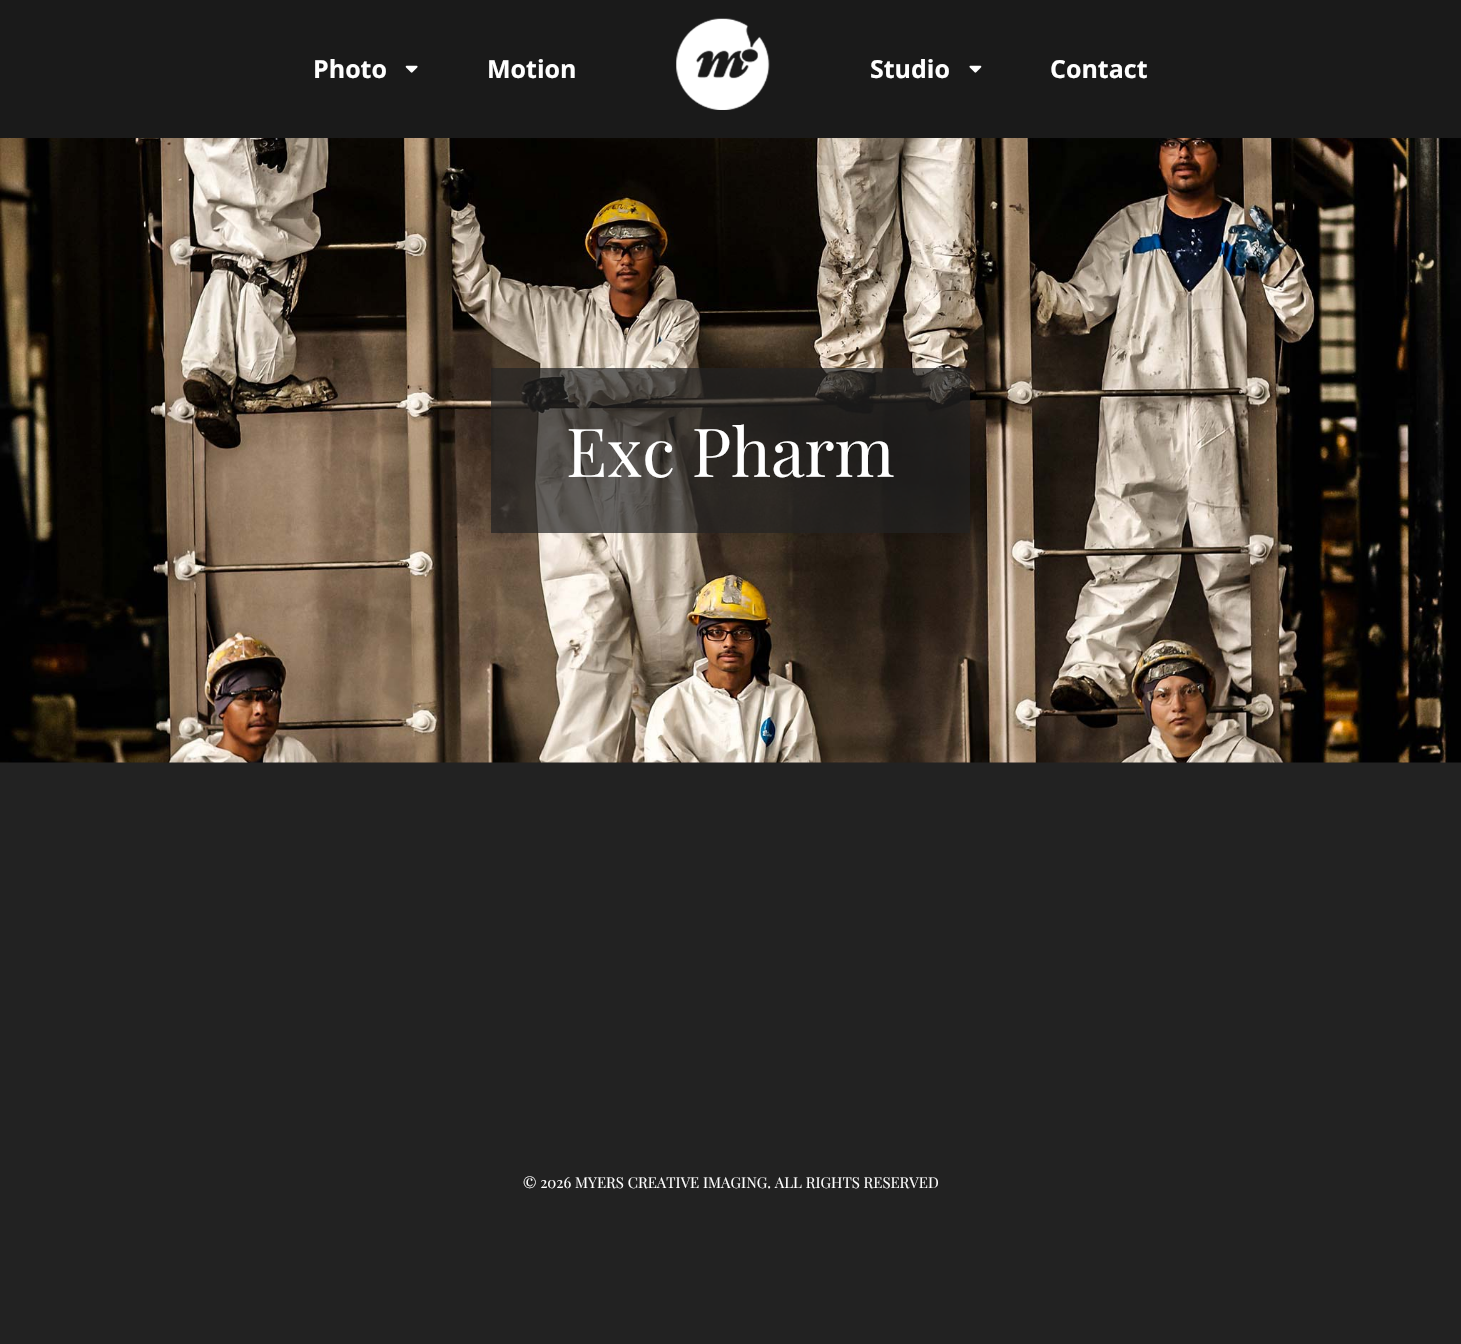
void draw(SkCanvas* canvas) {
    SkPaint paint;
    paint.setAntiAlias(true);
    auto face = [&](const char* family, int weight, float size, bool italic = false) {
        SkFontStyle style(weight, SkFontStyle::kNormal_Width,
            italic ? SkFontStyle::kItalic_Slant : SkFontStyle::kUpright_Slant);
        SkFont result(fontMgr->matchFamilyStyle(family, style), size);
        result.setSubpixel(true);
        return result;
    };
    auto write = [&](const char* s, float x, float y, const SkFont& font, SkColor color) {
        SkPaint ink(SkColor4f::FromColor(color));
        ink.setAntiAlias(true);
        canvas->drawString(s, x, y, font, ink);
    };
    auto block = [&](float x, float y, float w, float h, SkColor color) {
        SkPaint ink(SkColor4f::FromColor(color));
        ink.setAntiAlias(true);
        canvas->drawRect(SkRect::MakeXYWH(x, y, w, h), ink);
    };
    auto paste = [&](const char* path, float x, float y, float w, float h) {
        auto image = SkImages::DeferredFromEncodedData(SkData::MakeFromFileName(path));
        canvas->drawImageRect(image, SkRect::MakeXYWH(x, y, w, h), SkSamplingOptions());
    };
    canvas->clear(SkColorSetRGB(34, 34, 34));
    block(0, 0, 1461, 138, SkColorSetRGB(26, 26, 26));
    auto kFont1 = face("Open Sans", 700, 25);
    write("Photo", 313, 78, kFont1, SK_ColorWHITE);
    paste("pic1.png", 405, 65, 13, 8);
    write("Motion", 487, 78, kFont1, SK_ColorWHITE);
    paste("pic2.png", 676, 18, 94, 92);
    write("Studio", 870, 78, kFont1, SK_ColorWHITE);
    paste("pic3.png", 969, 65, 13, 8);
    write("Contact", 1050, 78, kFont1, SK_ColorWHITE);
    paste("pic4.png", 0, 138, 1461, 625);
    block(491, 368, 479, 165, SkColorSetARGB(179, 34, 34, 34));
    auto kFont2 = face("Playfair Display", 400, 67.5f);
    write("Exc Pharm", 566, 477, kFont2, SK_ColorWHITE);
    auto kFont3 = face("Playfair Display", 400, 15);
    write("© 2026 MYERS CREATIVE IMAGING. ALL RIGHTS RESERVED", 523, 1188, kFont3, SK_ColorWHITE);
}
